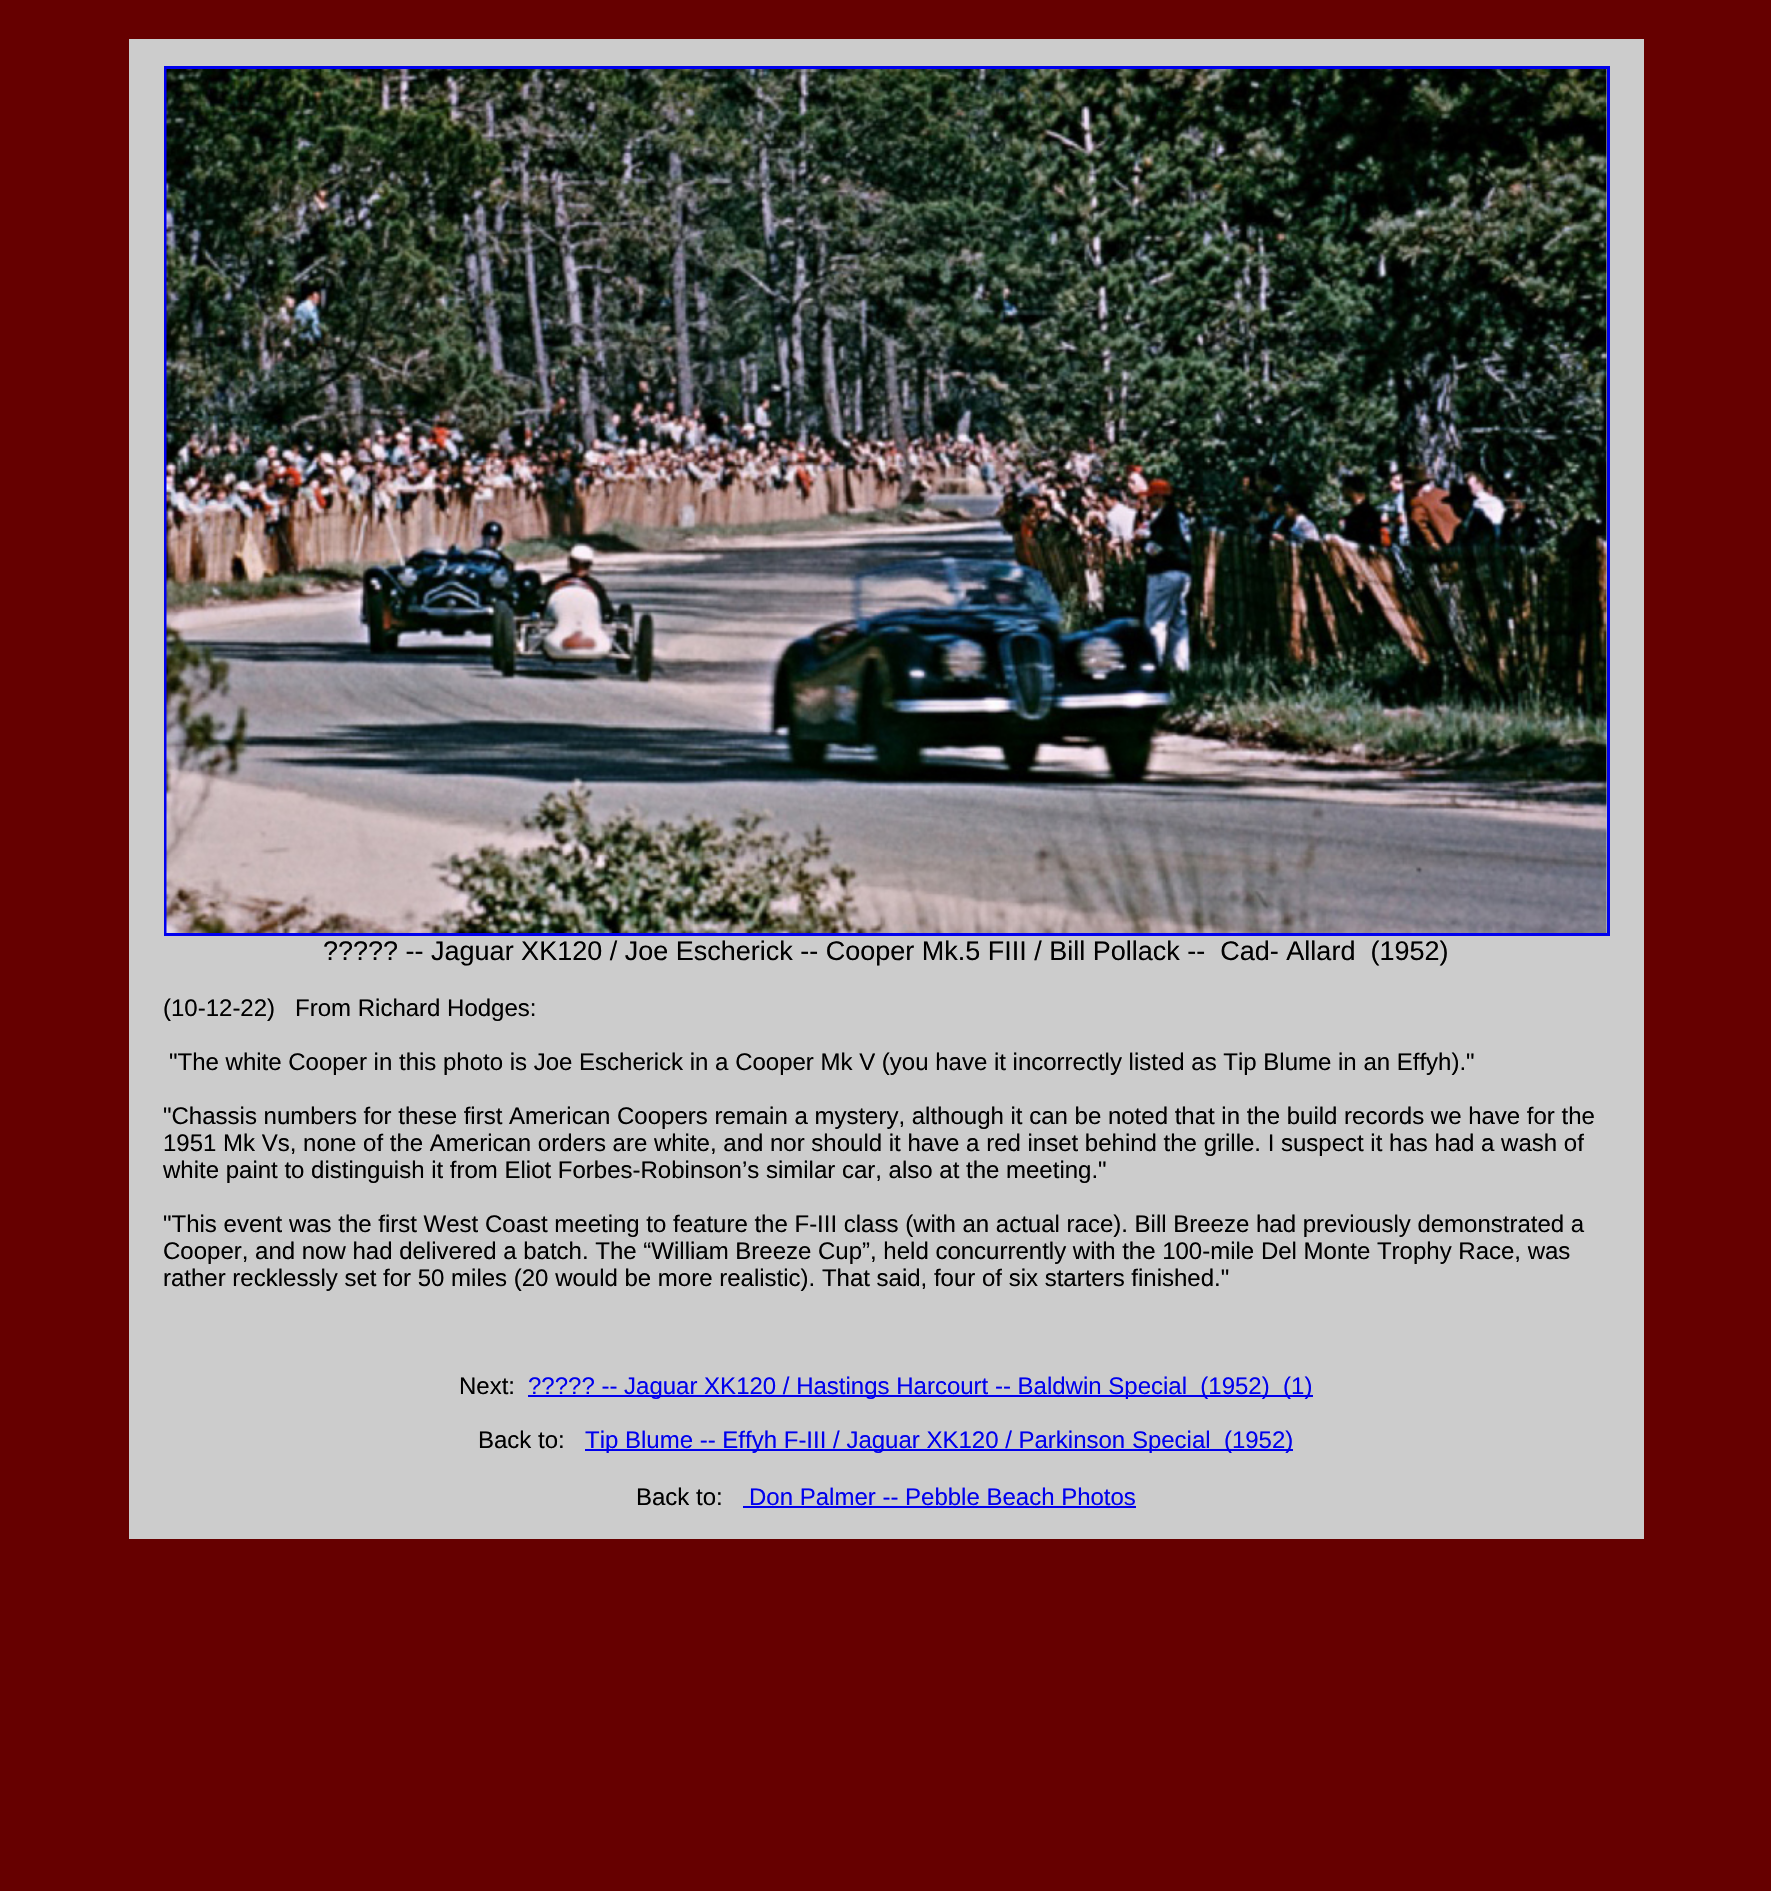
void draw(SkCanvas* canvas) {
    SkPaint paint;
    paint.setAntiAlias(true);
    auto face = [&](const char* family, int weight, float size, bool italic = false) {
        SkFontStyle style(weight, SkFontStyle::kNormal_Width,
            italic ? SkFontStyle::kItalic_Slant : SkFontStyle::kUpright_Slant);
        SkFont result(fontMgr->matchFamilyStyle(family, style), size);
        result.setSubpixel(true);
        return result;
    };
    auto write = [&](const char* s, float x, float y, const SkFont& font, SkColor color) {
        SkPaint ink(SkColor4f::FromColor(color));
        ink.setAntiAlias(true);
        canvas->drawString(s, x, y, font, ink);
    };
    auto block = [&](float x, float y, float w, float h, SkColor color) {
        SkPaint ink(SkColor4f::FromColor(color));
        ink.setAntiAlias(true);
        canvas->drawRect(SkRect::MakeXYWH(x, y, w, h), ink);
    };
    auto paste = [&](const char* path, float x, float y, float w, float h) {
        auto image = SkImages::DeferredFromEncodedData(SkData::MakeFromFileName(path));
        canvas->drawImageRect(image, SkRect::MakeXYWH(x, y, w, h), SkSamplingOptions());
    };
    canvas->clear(SkColorSetRGB(102, 0, 0));
    block(129, 39, 1515, 1500, SkColorSetRGB(204, 204, 204));
    paint.setStyle(SkPaint::kStroke_Style);
    paint.setStrokeWidth(3);
    paint.setColor(SkColorSetRGB(0, 0, 238));
    canvas->drawRect(SkRect::MakeXYWH(165.5f, 67.5f, 1443, 867), paint);
    paste("pic1.png", 166, 69, 1441, 864);
    auto kFont1 = face("Liberation Sans", 400, 27);
    write("?\077?\077? -- Jaguar XK120 / Joe Escherick -- Cooper Mk.5 FIII / Bill Pollack --  Cad- Allard  (1952)", 323, 960, kFont1, SK_ColorBLACK);
    auto kFont2 = face("Liberation Sans", 400, 24);
    write("(10-12-22)   From Richard Hodges:", 163, 1016, kFont2, SK_ColorBLACK);
    write("\"The white Cooper in this photo is Joe Escherick in a Cooper Mk V (you have it incorrectly listed as Tip Blume in an Effyh).\"", 169, 1070, kFont2, SK_ColorBLACK);
    write("\"Chassis numbers for these first American Coopers remain a mystery, although it can be noted that in the build records we have for the", 163, 1124, kFont2, SK_ColorBLACK);
    write("1951 Mk Vs, none of the American orders are white, and nor should it have a red inset behind the grille. I suspect it has had a wash of", 163, 1151, kFont2, SK_ColorBLACK);
    write("white paint to distinguish it from Eliot Forbes-Robinson’s similar car, also at the meeting.\"", 163, 1178, kFont2, SK_ColorBLACK);
    write("\"This event was the first West Coast meeting to feature the F-III class (with an actual race). Bill Breeze had previously demonstrated a", 163, 1232, kFont2, SK_ColorBLACK);
    write("Cooper, and now had delivered a batch. The “William Breeze Cup”, held concurrently with the 100-mile Del Monte Trophy Race, was", 163, 1259, kFont2, SK_ColorBLACK);
    write("rather recklessly set for 50 miles (20 would be more realistic). That said, four of six starters finished.\"", 163, 1286, kFont2, SK_ColorBLACK);
    write("Next:", 459, 1394, kFont2, SK_ColorBLACK);
    block(528, 1395, 785, 2, SkColorSetRGB(0, 0, 238));
    write("?\077?\077? -- Jaguar XK120 / Hastings Harcourt -- Baldwin Special  (1952)  (1)", 528, 1394, kFont2, SkColorSetRGB(0, 0, 238));
    write("Back to:", 478, 1448, kFont2, SK_ColorBLACK);
    block(585, 1449, 708, 2, SkColorSetRGB(0, 0, 238));
    write("Tip Blume -- Effyh F-III / Jaguar XK120 / Parkinson Special  (1952)", 585, 1448, kFont2, SkColorSetRGB(0, 0, 238));
    write("Back to:", 636, 1505, kFont2, SK_ColorBLACK);
    write("Don Palmer -- Pebble Beach Photos", 749, 1505, kFont2, SkColorSetRGB(0, 0, 238));
    block(743, 1506, 393, 2, SkColorSetRGB(0, 0, 238));
}
